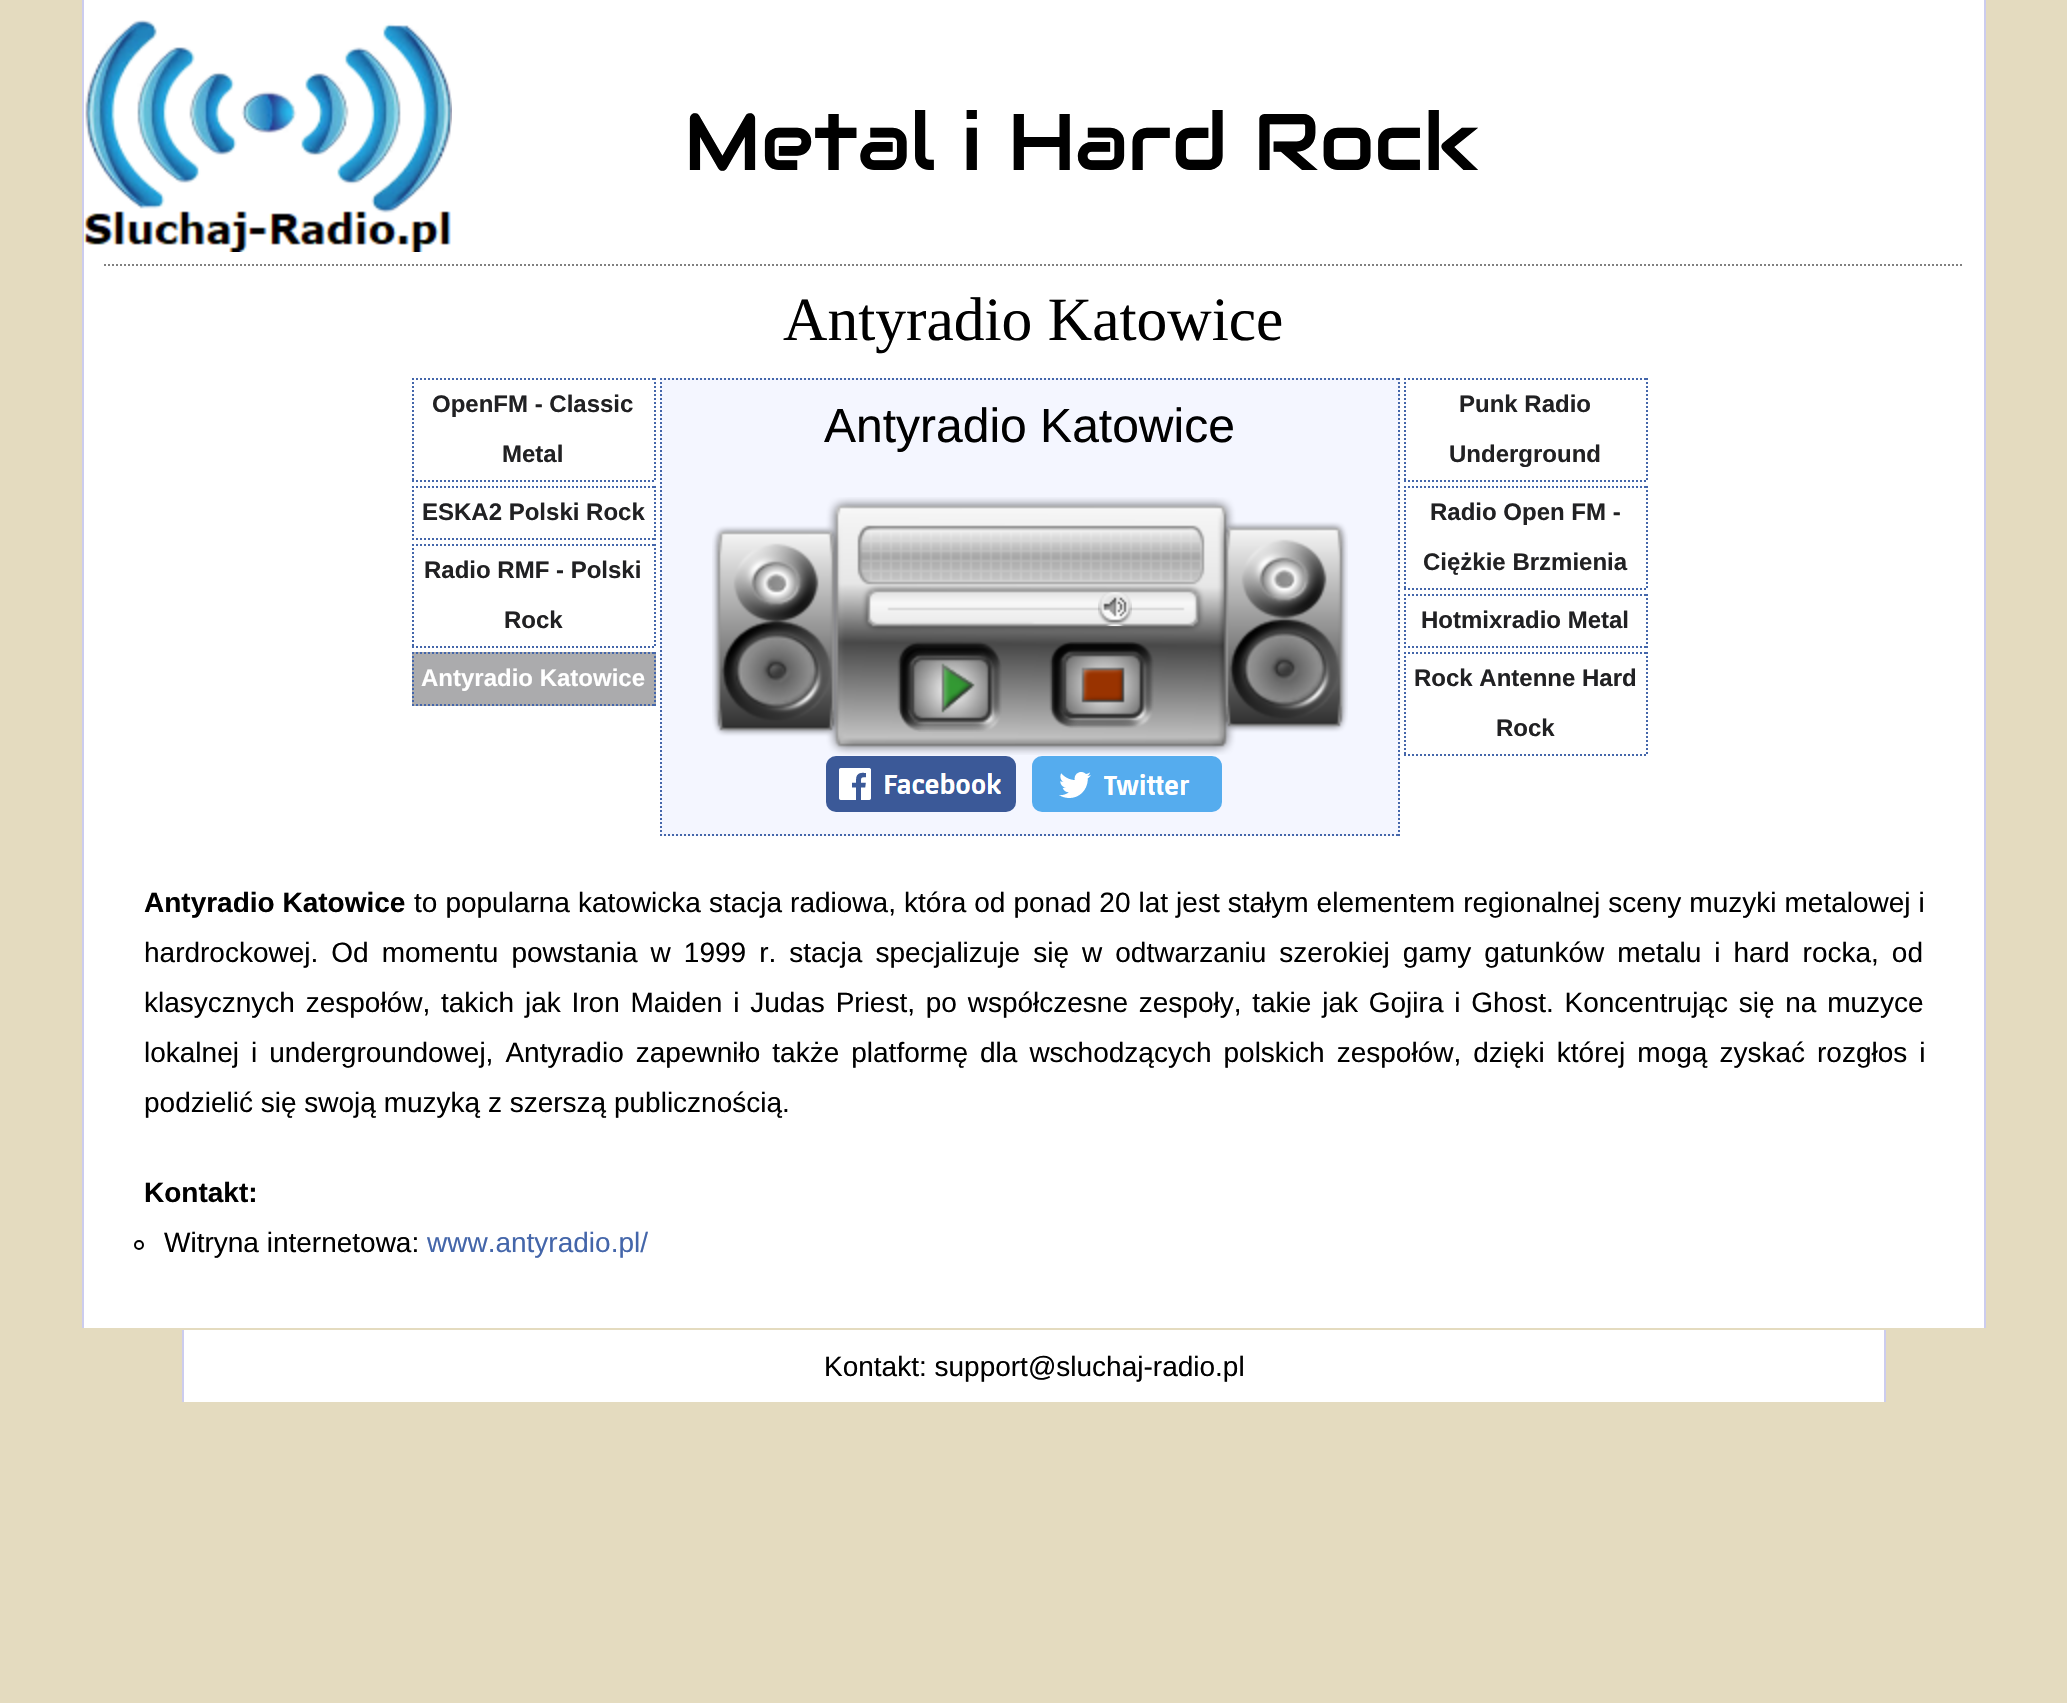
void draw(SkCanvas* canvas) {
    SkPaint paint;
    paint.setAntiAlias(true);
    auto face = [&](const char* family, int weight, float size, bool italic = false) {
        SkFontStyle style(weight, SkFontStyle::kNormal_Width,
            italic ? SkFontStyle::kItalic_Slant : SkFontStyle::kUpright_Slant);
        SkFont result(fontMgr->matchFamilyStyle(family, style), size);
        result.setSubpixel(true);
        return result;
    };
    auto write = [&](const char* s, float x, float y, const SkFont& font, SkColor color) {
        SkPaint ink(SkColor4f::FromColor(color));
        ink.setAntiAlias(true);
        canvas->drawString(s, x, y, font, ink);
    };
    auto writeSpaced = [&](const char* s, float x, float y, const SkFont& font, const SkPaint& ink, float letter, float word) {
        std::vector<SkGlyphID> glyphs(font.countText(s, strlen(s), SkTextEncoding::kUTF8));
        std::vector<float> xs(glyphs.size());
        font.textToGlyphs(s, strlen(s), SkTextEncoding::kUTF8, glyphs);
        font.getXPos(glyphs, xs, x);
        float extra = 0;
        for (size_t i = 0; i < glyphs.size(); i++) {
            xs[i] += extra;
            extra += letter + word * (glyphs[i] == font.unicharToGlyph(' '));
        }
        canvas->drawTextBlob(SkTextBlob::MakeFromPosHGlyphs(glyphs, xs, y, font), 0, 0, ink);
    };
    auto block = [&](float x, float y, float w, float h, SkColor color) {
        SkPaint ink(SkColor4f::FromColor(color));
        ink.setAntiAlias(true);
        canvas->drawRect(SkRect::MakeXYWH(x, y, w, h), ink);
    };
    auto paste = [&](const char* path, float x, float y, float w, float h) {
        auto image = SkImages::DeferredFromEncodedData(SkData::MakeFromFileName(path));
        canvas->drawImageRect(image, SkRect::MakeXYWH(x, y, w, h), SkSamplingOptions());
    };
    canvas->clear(SkColorSetRGB(228, 219, 191));
    block(84, 0, 1900, 1328, SK_ColorWHITE);
    paste("pic1.png", 84, 20, 368, 232);
    auto kFont1 = face("Audiowide", 400, 80);
    write("Metal i Hard Rock", 684, 170, kFont1, SK_ColorBLACK);
    block(1984, 0, 2, 1328, SkColorSetRGB(204, 204, 238));
    block(82, 0, 2, 1328, SkColorSetRGB(204, 204, 238));
    paint.setStyle(SkPaint::kStroke_Style);
    paint.setStrokeWidth(2);
    paint.setColor(SkColorSetRGB(128, 128, 128));
    paint.setPathEffect(SkDashPathEffect::Make({{2, 2}}, 0));
    canvas->drawPath(SkPathBuilder().moveTo(104, 265).lineTo(1964, 265).detach(), paint);
    paint.setPathEffect(nullptr);
    auto kFont2 = face("Liberation Serif", 400, 61.5f);
    write("Antyradio Katowice", 783, 340, kFont2, SK_ColorBLACK);
    paint.setColor(SkColorSetRGB(68, 102, 170));
    paint.setPathEffect(SkDashPathEffect::Make({{2, 2}}, 0));
    canvas->drawPath(SkPathBuilder().moveTo(412, 379).lineTo(656, 379).detach(), paint);
    paint.setPathEffect(nullptr);
    paint.setPathEffect(SkDashPathEffect::Make({{2, 2}}, 0));
    canvas->drawPath(SkPathBuilder().moveTo(655, 378).lineTo(655, 482).detach(), paint);
    paint.setPathEffect(nullptr);
    paint.setPathEffect(SkDashPathEffect::Make({{2, 2}}, 0));
    canvas->drawPath(SkPathBuilder().moveTo(412, 481).lineTo(656, 481).detach(), paint);
    paint.setPathEffect(nullptr);
    paint.setPathEffect(SkDashPathEffect::Make({{2, 2}}, 0));
    canvas->drawPath(SkPathBuilder().moveTo(413, 378).lineTo(413, 482).detach(), paint);
    paint.setPathEffect(nullptr);
    auto kFont3 = face("Liberation Sans", 700, 24);
    write("OpenFM - Classic", 432, 412, kFont3, SkColorSetRGB(33, 33, 35));
    write("Metal", 502, 462, kFont3, SkColorSetRGB(33, 33, 35));
    paint.setPathEffect(SkDashPathEffect::Make({{2, 2}}, 0));
    canvas->drawPath(SkPathBuilder().moveTo(412, 487).lineTo(656, 487).detach(), paint);
    paint.setPathEffect(nullptr);
    paint.setPathEffect(SkDashPathEffect::Make({{2, 2}}, 0));
    canvas->drawPath(SkPathBuilder().moveTo(655, 486).lineTo(655, 540).detach(), paint);
    paint.setPathEffect(nullptr);
    paint.setPathEffect(SkDashPathEffect::Make({{2, 2}}, 0));
    canvas->drawPath(SkPathBuilder().moveTo(412, 539).lineTo(656, 539).detach(), paint);
    paint.setPathEffect(nullptr);
    paint.setPathEffect(SkDashPathEffect::Make({{2, 2}}, 0));
    canvas->drawPath(SkPathBuilder().moveTo(413, 486).lineTo(413, 540).detach(), paint);
    paint.setPathEffect(nullptr);
    write("ESKA2 Polski Rock", 422, 520, kFont3, SkColorSetRGB(33, 33, 35));
    paint.setPathEffect(SkDashPathEffect::Make({{2, 2}}, 0));
    canvas->drawPath(SkPathBuilder().moveTo(412, 545).lineTo(656, 545).detach(), paint);
    paint.setPathEffect(nullptr);
    paint.setPathEffect(SkDashPathEffect::Make({{2, 2}}, 0));
    canvas->drawPath(SkPathBuilder().moveTo(655, 544).lineTo(655, 648).detach(), paint);
    paint.setPathEffect(nullptr);
    paint.setPathEffect(SkDashPathEffect::Make({{2, 2}}, 0));
    canvas->drawPath(SkPathBuilder().moveTo(412, 647).lineTo(656, 647).detach(), paint);
    paint.setPathEffect(nullptr);
    paint.setPathEffect(SkDashPathEffect::Make({{2, 2}}, 0));
    canvas->drawPath(SkPathBuilder().moveTo(413, 544).lineTo(413, 648).detach(), paint);
    paint.setPathEffect(nullptr);
    write("Radio RMF - Polski", 424, 578, kFont3, SkColorSetRGB(33, 33, 35));
    write("Rock", 504, 628, kFont3, SkColorSetRGB(33, 33, 35));
    block(412, 652, 244, 54, SkColorSetRGB(171, 171, 173));
    paint.setPathEffect(SkDashPathEffect::Make({{2, 2}}, 0));
    canvas->drawPath(SkPathBuilder().moveTo(412, 653).lineTo(656, 653).detach(), paint);
    paint.setPathEffect(nullptr);
    paint.setPathEffect(SkDashPathEffect::Make({{2, 2}}, 0));
    canvas->drawPath(SkPathBuilder().moveTo(655, 652).lineTo(655, 706).detach(), paint);
    paint.setPathEffect(nullptr);
    paint.setPathEffect(SkDashPathEffect::Make({{2, 2}}, 0));
    canvas->drawPath(SkPathBuilder().moveTo(412, 705).lineTo(656, 705).detach(), paint);
    paint.setPathEffect(nullptr);
    paint.setPathEffect(SkDashPathEffect::Make({{2, 2}}, 0));
    canvas->drawPath(SkPathBuilder().moveTo(413, 652).lineTo(413, 706).detach(), paint);
    paint.setPathEffect(nullptr);
    write("Antyradio Katowice", 421, 686, kFont3, SK_ColorWHITE);
    block(660, 378, 740, 458, SkColorSetRGB(244, 246, 255));
    paint.setPathEffect(SkDashPathEffect::Make({{2, 2}}, 0));
    canvas->drawPath(SkPathBuilder().moveTo(660, 379).lineTo(1400, 379).detach(), paint);
    paint.setPathEffect(nullptr);
    paint.setPathEffect(SkDashPathEffect::Make({{2, 2}}, 0));
    canvas->drawPath(SkPathBuilder().moveTo(1399, 378).lineTo(1399, 836).detach(), paint);
    paint.setPathEffect(nullptr);
    paint.setPathEffect(SkDashPathEffect::Make({{2, 2}}, 0));
    canvas->drawPath(SkPathBuilder().moveTo(660, 835).lineTo(1400, 835).detach(), paint);
    paint.setPathEffect(nullptr);
    paint.setPathEffect(SkDashPathEffect::Make({{2, 2}}, 0));
    canvas->drawPath(SkPathBuilder().moveTo(661, 378).lineTo(661, 836).detach(), paint);
    paint.setPathEffect(nullptr);
    auto kFont4 = face("Liberation Sans", 400, 48);
    write("Antyradio Katowice", 824, 442, kFont4, SK_ColorBLACK);
    paste("pic2.png", 712, 497, 636, 258);
    paste("pic3.png", 1098, 592, 34, 34);
    paste("pic4.png", 900, 646, 102, 86);
    paste("pic5.png", 1052, 642, 102, 86);
    paste("pic6.png", 826, 756, 190, 56);
    paste("pic7.png", 1032, 756, 190, 56);
    paint.setPathEffect(SkDashPathEffect::Make({{2, 2}}, 0));
    canvas->drawPath(SkPathBuilder().moveTo(1404, 379).lineTo(1648, 379).detach(), paint);
    paint.setPathEffect(nullptr);
    paint.setPathEffect(SkDashPathEffect::Make({{2, 2}}, 0));
    canvas->drawPath(SkPathBuilder().moveTo(1647, 378).lineTo(1647, 482).detach(), paint);
    paint.setPathEffect(nullptr);
    paint.setPathEffect(SkDashPathEffect::Make({{2, 2}}, 0));
    canvas->drawPath(SkPathBuilder().moveTo(1404, 481).lineTo(1648, 481).detach(), paint);
    paint.setPathEffect(nullptr);
    paint.setPathEffect(SkDashPathEffect::Make({{2, 2}}, 0));
    canvas->drawPath(SkPathBuilder().moveTo(1405, 378).lineTo(1405, 482).detach(), paint);
    paint.setPathEffect(nullptr);
    write("Punk Radio", 1459, 412, kFont3, SkColorSetRGB(33, 33, 35));
    write("Underground", 1449, 462, kFont3, SkColorSetRGB(33, 33, 35));
    paint.setPathEffect(SkDashPathEffect::Make({{2, 2}}, 0));
    canvas->drawPath(SkPathBuilder().moveTo(1404, 487).lineTo(1648, 487).detach(), paint);
    paint.setPathEffect(nullptr);
    paint.setPathEffect(SkDashPathEffect::Make({{2, 2}}, 0));
    canvas->drawPath(SkPathBuilder().moveTo(1647, 486).lineTo(1647, 590).detach(), paint);
    paint.setPathEffect(nullptr);
    paint.setPathEffect(SkDashPathEffect::Make({{2, 2}}, 0));
    canvas->drawPath(SkPathBuilder().moveTo(1404, 589).lineTo(1648, 589).detach(), paint);
    paint.setPathEffect(nullptr);
    paint.setPathEffect(SkDashPathEffect::Make({{2, 2}}, 0));
    canvas->drawPath(SkPathBuilder().moveTo(1405, 486).lineTo(1405, 590).detach(), paint);
    paint.setPathEffect(nullptr);
    write("Radio Open FM -", 1430, 520, kFont3, SkColorSetRGB(33, 33, 35));
    write("Ciężkie Brzmienia", 1423, 570, kFont3, SkColorSetRGB(33, 33, 35));
    paint.setPathEffect(SkDashPathEffect::Make({{2, 2}}, 0));
    canvas->drawPath(SkPathBuilder().moveTo(1404, 595).lineTo(1648, 595).detach(), paint);
    paint.setPathEffect(nullptr);
    paint.setPathEffect(SkDashPathEffect::Make({{2, 2}}, 0));
    canvas->drawPath(SkPathBuilder().moveTo(1647, 594).lineTo(1647, 648).detach(), paint);
    paint.setPathEffect(nullptr);
    paint.setPathEffect(SkDashPathEffect::Make({{2, 2}}, 0));
    canvas->drawPath(SkPathBuilder().moveTo(1404, 647).lineTo(1648, 647).detach(), paint);
    paint.setPathEffect(nullptr);
    paint.setPathEffect(SkDashPathEffect::Make({{2, 2}}, 0));
    canvas->drawPath(SkPathBuilder().moveTo(1405, 594).lineTo(1405, 648).detach(), paint);
    paint.setPathEffect(nullptr);
    write("Hotmixradio Metal", 1421, 628, kFont3, SkColorSetRGB(33, 33, 35));
    paint.setPathEffect(SkDashPathEffect::Make({{2, 2}}, 0));
    canvas->drawPath(SkPathBuilder().moveTo(1404, 653).lineTo(1648, 653).detach(), paint);
    paint.setPathEffect(nullptr);
    paint.setPathEffect(SkDashPathEffect::Make({{2, 2}}, 0));
    canvas->drawPath(SkPathBuilder().moveTo(1647, 652).lineTo(1647, 756).detach(), paint);
    paint.setPathEffect(nullptr);
    paint.setPathEffect(SkDashPathEffect::Make({{2, 2}}, 0));
    canvas->drawPath(SkPathBuilder().moveTo(1404, 755).lineTo(1648, 755).detach(), paint);
    paint.setPathEffect(nullptr);
    paint.setPathEffect(SkDashPathEffect::Make({{2, 2}}, 0));
    canvas->drawPath(SkPathBuilder().moveTo(1405, 652).lineTo(1405, 756).detach(), paint);
    paint.setPathEffect(nullptr);
    write("Rock Antenne Hard", 1414, 686, kFont3, SkColorSetRGB(33, 33, 35));
    write("Rock", 1496, 736, kFont3, SkColorSetRGB(33, 33, 35));
    auto kFont5 = face("Liberation Sans", 700, 28);
    write("Antyradio Katowice", 144, 912, kFont5, SK_ColorBLACK);
    auto kFont6 = face("Liberation Sans", 400, 28);
    paint.setStyle(SkPaint::kFill_Style);
    paint.setColor(SK_ColorBLACK);
    writeSpaced("to popularna katowicka stacja radiowa, która od ponad 20 lat jest stałym elementem regionalnej sceny muzyki metalowej i", 414, 912, kFont6, paint, 0, 0.25f);
    writeSpaced("hardrockowej. Od momentu powstania w 1999 r. stacja specjalizuje się w odtwarzaniu szerokiej gamy gatunków metalu i hard rocka, od", 144, 962, kFont6, paint, 0, 5.25f);
    writeSpaced("klasycznych zespołów, takich jak Iron Maiden i Judas Priest, po współczesne zespoły, takie jak Gojira i Ghost. Koncentrując się na muzyce", 144, 1012, kFont6, paint, 0, 3);
    writeSpaced("lokalnej i undergroundowej, Antyradio zapewniło także platformę dla wschodzących polskich zespołów, dzięki której mogą zyskać rozgłos i", 144, 1062, kFont6, paint, 0, 4.25f);
    write("podzielić się swoją muzyką z szerszą publicznością.", 144, 1112, kFont6, SK_ColorBLACK);
    write("Kontakt:", 144, 1202, kFont5, SK_ColorBLACK);
    paint.setStyle(SkPaint::kStroke_Style);
    canvas->drawCircle(139, 1245, 4, paint);
    write("Witryna internetowa:", 164, 1252, kFont6, SK_ColorBLACK);
    write("www.antyradio.pl/", 427, 1252, kFont6, SkColorSetRGB(68, 102, 170));
    block(184, 1330, 1700, 72, SK_ColorWHITE);
    block(1884, 1330, 2, 72, SkColorSetRGB(204, 204, 238));
    block(182, 1330, 2, 72, SkColorSetRGB(204, 204, 238));
    write("Kontakt: support@sluchaj-radio.pl", 824, 1376, kFont6, SK_ColorBLACK);
}
